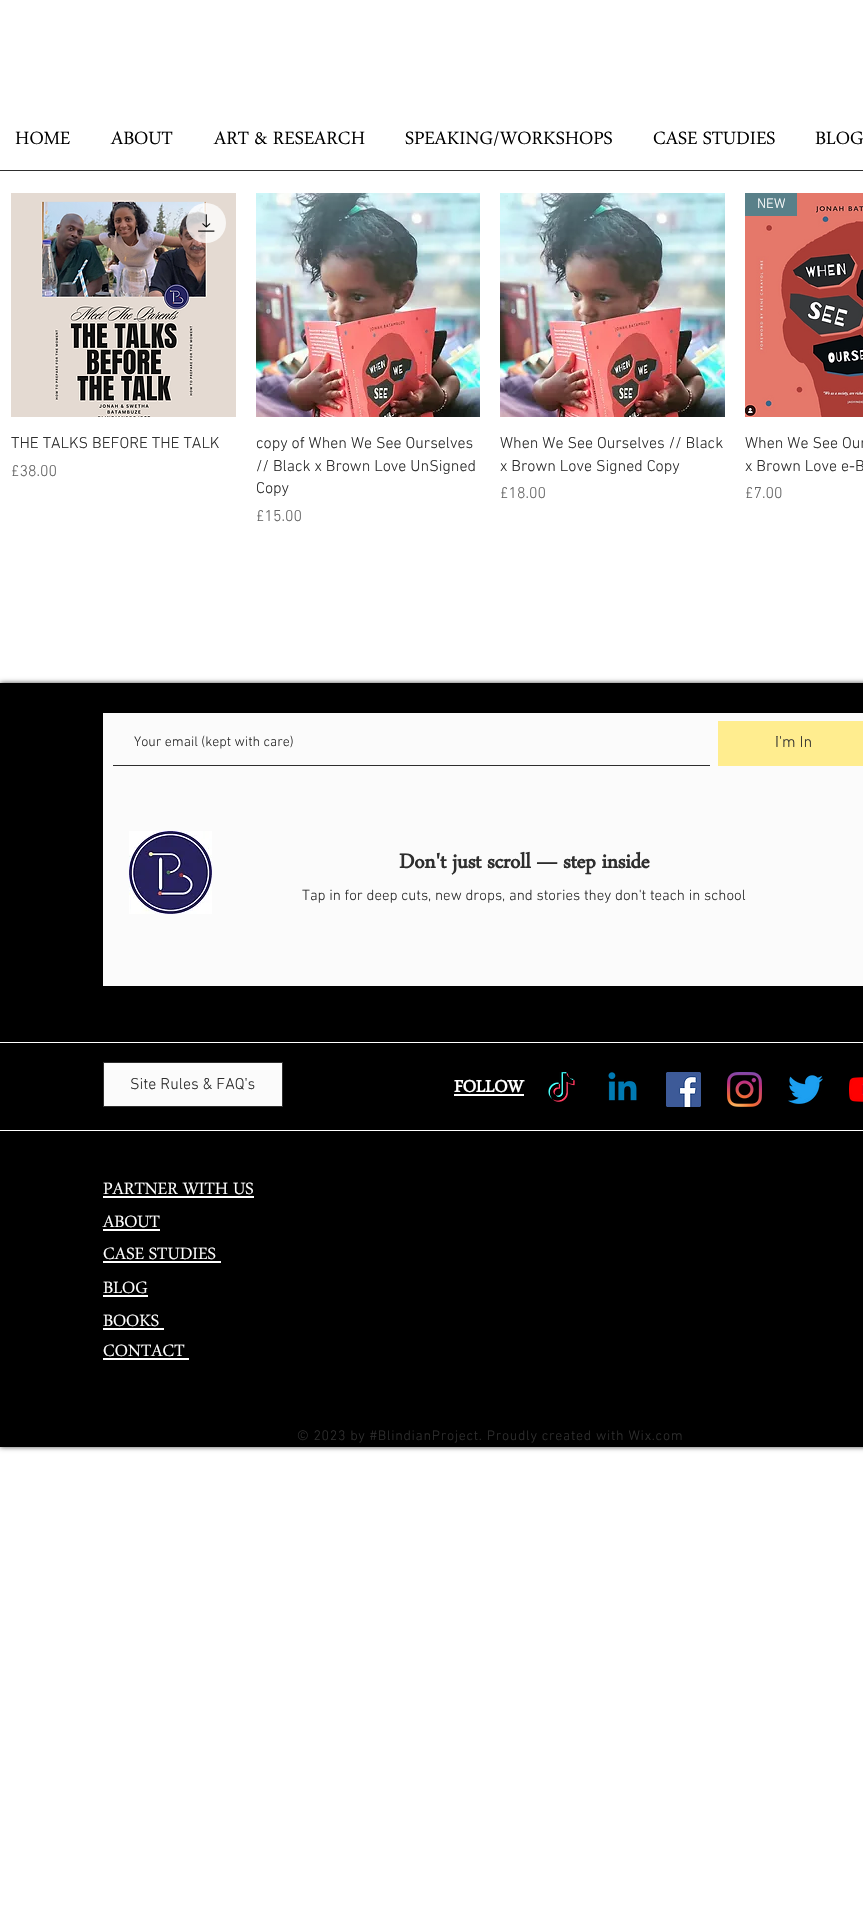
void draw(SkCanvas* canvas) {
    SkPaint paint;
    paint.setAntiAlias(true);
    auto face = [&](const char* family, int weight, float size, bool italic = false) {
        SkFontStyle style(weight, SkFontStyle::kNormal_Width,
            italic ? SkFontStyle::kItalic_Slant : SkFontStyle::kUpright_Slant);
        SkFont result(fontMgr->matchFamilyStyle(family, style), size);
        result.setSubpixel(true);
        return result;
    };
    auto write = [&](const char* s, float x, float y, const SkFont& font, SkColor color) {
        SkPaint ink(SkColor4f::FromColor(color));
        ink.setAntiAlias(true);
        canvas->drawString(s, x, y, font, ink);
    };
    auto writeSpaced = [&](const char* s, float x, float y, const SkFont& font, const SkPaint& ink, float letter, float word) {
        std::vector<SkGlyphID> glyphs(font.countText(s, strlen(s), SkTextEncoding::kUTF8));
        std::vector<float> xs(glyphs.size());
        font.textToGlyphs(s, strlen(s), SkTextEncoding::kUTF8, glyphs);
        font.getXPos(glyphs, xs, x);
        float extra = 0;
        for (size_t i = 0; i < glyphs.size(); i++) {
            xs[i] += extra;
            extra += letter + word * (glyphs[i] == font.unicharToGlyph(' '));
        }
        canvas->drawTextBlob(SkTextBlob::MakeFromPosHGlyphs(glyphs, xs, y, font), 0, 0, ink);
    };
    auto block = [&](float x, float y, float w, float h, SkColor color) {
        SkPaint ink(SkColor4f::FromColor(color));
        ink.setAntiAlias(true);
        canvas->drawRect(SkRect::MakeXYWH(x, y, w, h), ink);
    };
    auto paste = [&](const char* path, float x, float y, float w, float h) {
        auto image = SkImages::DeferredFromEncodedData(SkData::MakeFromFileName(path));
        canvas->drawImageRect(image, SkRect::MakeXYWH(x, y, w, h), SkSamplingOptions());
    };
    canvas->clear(SK_ColorWHITE);
    auto kFont1 = face("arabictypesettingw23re", 400, 26);
    write("HOME", 15, 144, kFont1, SK_ColorBLACK);
    write("ABOUT", 111, 144, kFont1, SK_ColorBLACK);
    write("ART & RESEARCH", 214, 144, kFont1, SK_ColorBLACK);
    write("SPEAKING/WORKSHOPS", 405, 144, kFont1, SK_ColorBLACK);
    write("CASE STUDIES", 653, 144, kFont1, SK_ColorBLACK);
    write("BLOG", 815, 144, kFont1, SK_ColorBLACK);
    block(0, 170, 863, 1, SkColorSetRGB(46, 46, 46));
    paste("pic1.png", 11, 193, 225, 224);
    paint.setColor(SkColorSetARGB(191, 255, 255, 255));
    canvas->drawCircle(206, 223, 20, paint);
    paste("pic2.png", 198, 214, 17, 18);
    auto kFont2 = face("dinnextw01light", 300, 16);
    write("THE TALKS BEFORE THE TALK", 11, 448, kFont2, SkColorSetRGB(46, 46, 46));
    write("£38.00", 11, 476, kFont2, SkColorSetRGB(100, 100, 100));
    paste("pic3.png", 256, 193, 224, 224);
    write("copy of When We See Ourselves", 256, 448, kFont2, SkColorSetRGB(46, 46, 46));
    write("// Black x Brown Love UnSigned", 256, 471, kFont2, SkColorSetRGB(46, 46, 46));
    write("Copy", 256, 493, kFont2, SkColorSetRGB(46, 46, 46));
    write("£15.00", 256, 521, kFont2, SkColorSetRGB(100, 100, 100));
    paste("pic4.png", 500, 193, 225, 224);
    write("When We See Ourselves // Black", 500, 448, kFont2, SkColorSetRGB(46, 46, 46));
    write("x Brown Love Signed Copy", 500, 471, kFont2, SkColorSetRGB(46, 46, 46));
    write("£18.00", 500, 498, kFont2, SkColorSetRGB(100, 100, 100));
    paste("pic5.png", 745, 193, 118, 224);
    block(745, 193, 52, 23, SkColorSetRGB(89, 128, 137));
    auto kFont3 = face("dinnextw01light", 300, 14);
    write("NEW", 757, 208, kFont3, SK_ColorWHITE);
    write("When We See Our", 745, 448, kFont2, SkColorSetRGB(46, 46, 46));
    write("x Brown Love e-B", 745, 471, kFont2, SkColorSetRGB(46, 46, 46));
    write("£7.00", 745, 498, kFont2, SkColorSetRGB(100, 100, 100));
    paint.setColor(SkColorSetARGB(179, 0, 0, 0));
    paint.setMaskFilter(SkMaskFilter::MakeBlur(kNormal_SkBlurStyle, 2.5f));
    canvas->drawRect(SkRect::MakeXYWH(0, 683, 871, 764), paint);
    paint.setMaskFilter(nullptr);
    block(0, 683, 863, 764, SK_ColorBLACK);
    block(103, 713, 760, 273, SkColorSetRGB(251, 251, 251));
    block(113, 765, 597, 1, SkColorSetRGB(46, 46, 46));
    write("Your email (kept with care)", 134, 746, kFont3, SkColorSetRGB(46, 46, 46));
    block(718, 721, 145, 45, SkColorSetRGB(255, 237, 143));
    write("I'm In", 775, 747, kFont2, SkColorSetRGB(46, 46, 46));
    paste("pic6.png", 129, 831, 83, 83);
    auto kFont4 = face("arabictypesettingw23re", 700, 29);
    write("Don't just scroll — step inside", 399, 868, kFont4, SkColorSetRGB(46, 46, 46));
    auto kFont5 = face("dinnextw01light", 300, 15);
    write("Tap in for deep cuts, new drops, and stories they don't teach in school", 302, 900, kFont5, SkColorSetRGB(46, 46, 46));
    block(0, 1042, 863, 1, SK_ColorWHITE);
    paint.setColor(SkColorSetRGB(251, 251, 251));
    canvas->drawRect(SkRect::MakeXYWH(103.5f, 1062.5f, 179, 44), paint);
    paint.setStyle(SkPaint::kStroke_Style);
    paint.setStrokeWidth(1);
    paint.setColor(SkColorSetRGB(46, 46, 46));
    canvas->drawRect(SkRect::MakeXYWH(103.5f, 1062.5f, 179, 44), paint);
    write("Site Rules & FAQ's", 130, 1089, kFont2, SkColorSetRGB(46, 46, 46));
    auto kFont6 = face("arabictypesettingw23re", 700, 24);
    write("FOLLOW", 454, 1092, kFont6, SK_ColorWHITE);
    block(454, 1094, 70, 2, SK_ColorWHITE);
    paste("pic7.png", 548, 1072, 27, 30);
    paste("pic8.png", 608, 1072, 29, 29);
    paste("pic9.png", 666, 1072, 35, 35);
    paste("pic10.png", 727, 1072, 35, 35);
    paste("pic11.png", 788, 1075, 35, 29);
    paste("pic12.png", 849, 1077, 14, 25);
    block(0, 1130, 863, 1, SK_ColorWHITE);
    auto kFont7 = face("arabictypesettingw23re", 400, 24);
    write("PARTNER WITH US", 103, 1194, kFont7, SK_ColorWHITE);
    block(103, 1196, 151, 2, SK_ColorWHITE);
    write("ABOUT", 103, 1227, kFont7, SK_ColorWHITE);
    block(103, 1229, 57, 2, SK_ColorWHITE);
    write("CASE STUDIES", 103, 1259, kFont7, SK_ColorWHITE);
    block(103, 1261, 118, 2, SK_ColorWHITE);
    write("BLOG", 103, 1293, kFont7, SK_ColorWHITE);
    block(103, 1295, 45, 2, SK_ColorWHITE);
    write("BOOKS", 103, 1326, kFont7, SK_ColorWHITE);
    block(103, 1328, 61, 2, SK_ColorWHITE);
    write("CONTACT", 103, 1356, kFont7, SK_ColorWHITE);
    block(103, 1358, 86, 2, SK_ColorWHITE);
    paint.setStyle(SkPaint::kFill_Style);
    writeSpaced("© 2023 by #BlindianProject. Proudly created with Wix.com", 297, 1440, kFont3, paint, 0.7f, 0);
}
